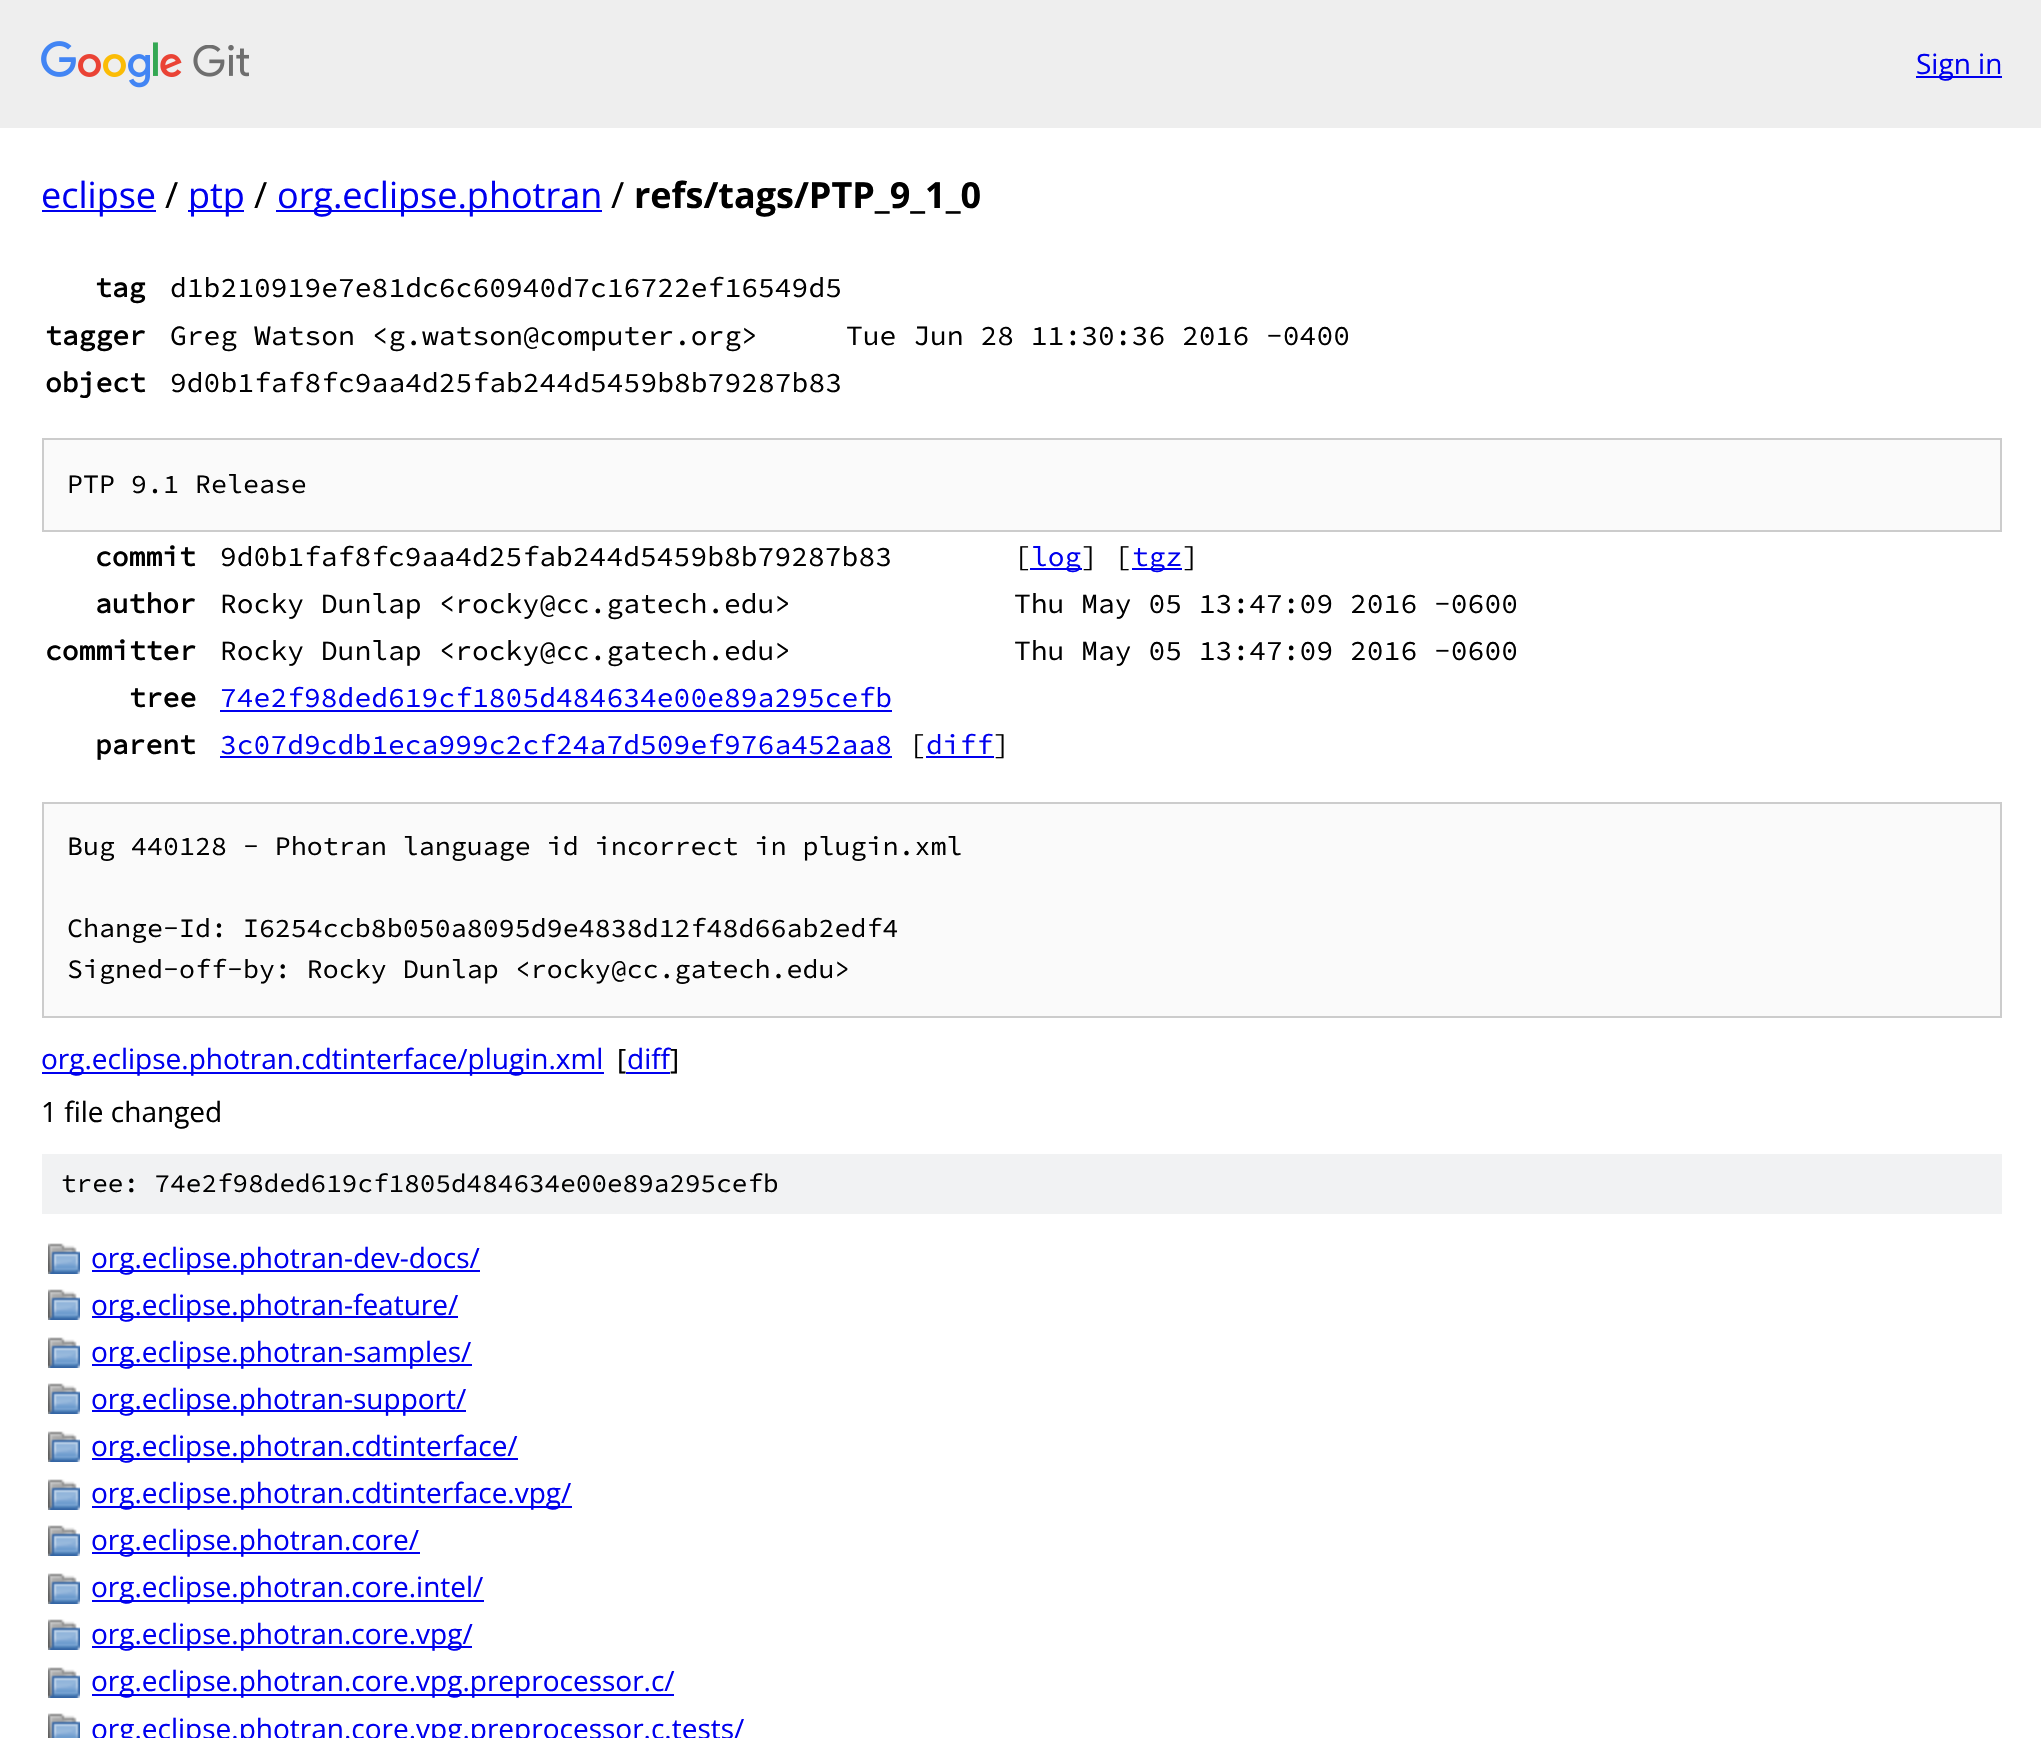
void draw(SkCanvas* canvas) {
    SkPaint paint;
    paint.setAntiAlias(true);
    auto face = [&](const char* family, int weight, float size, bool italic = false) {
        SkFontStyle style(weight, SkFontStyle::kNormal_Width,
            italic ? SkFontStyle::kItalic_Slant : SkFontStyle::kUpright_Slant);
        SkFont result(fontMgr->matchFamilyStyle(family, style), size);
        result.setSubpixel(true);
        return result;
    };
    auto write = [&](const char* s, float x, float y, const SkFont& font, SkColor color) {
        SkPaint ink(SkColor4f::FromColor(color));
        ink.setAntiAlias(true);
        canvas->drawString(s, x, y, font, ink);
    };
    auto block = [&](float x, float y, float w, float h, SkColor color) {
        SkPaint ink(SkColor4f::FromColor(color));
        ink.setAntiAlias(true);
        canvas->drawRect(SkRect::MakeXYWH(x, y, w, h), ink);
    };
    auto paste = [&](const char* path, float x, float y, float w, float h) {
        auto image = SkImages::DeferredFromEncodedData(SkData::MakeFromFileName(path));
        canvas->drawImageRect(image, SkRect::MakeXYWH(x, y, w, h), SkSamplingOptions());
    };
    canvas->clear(SK_ColorWHITE);
    block(0, 0, 2041, 128, SkColorSetRGB(238, 238, 238));
    paste("pic1.png", 41, 41, 208, 47);
    block(1916, 76, 86, 2, SkColorSetRGB(0, 0, 238));
    auto kFont1 = face("Open Sans", 400, 28);
    write("Sign in", 1916, 74, kFont1, SkColorSetRGB(0, 0, 238));
    block(42, 210, 114, 2, SkColorSetRGB(0, 0, 238));
    auto kFont2 = face("Open Sans", 400, 36);
    write("eclipse", 41, 208, kFont2, SkColorSetRGB(0, 0, 238));
    write("/", 165, 208, kFont2, SK_ColorBLACK);
    block(188, 210, 56, 2, SkColorSetRGB(0, 0, 238));
    write("ptp", 188, 208, kFont2, SkColorSetRGB(0, 0, 238));
    write("/", 254, 208, kFont2, SK_ColorBLACK);
    block(276, 210, 326, 2, SkColorSetRGB(0, 0, 238));
    write("org.eclipse.photran", 277, 208, kFont2, SkColorSetRGB(0, 0, 238));
    write("/", 611, 208, kFont2, SK_ColorBLACK);
    auto kFont3 = face("Open Sans", 700, 36);
    write("refs/tags/PTP_9_1_0", 634, 208, kFont3, SK_ColorBLACK);
    auto kFont4 = face("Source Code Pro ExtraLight", 700, 28);
    write("tag", 95, 297, kFont4, SK_ColorBLACK);
    auto kFont5 = face("Source Code Pro ExtraLight", 200, 28);
    write("d1b210919e7e81dc6c60940d7c16722ef16549d5", 170, 297, kFont5, SK_ColorBLACK);
    write("tagger", 45, 345, kFont4, SK_ColorBLACK);
    write("Greg Watson <g.watson@computer.org>", 170, 345, kFont5, SK_ColorBLACK);
    write("Tue Jun 28 11:30:36 2016 -0400", 846, 345, kFont5, SK_ColorBLACK);
    write("object", 45, 392, kFont4, SK_ColorBLACK);
    write("9d0b1faf8fc9aa4d25fab244d5459b8b79287b83", 170, 392, kFont5, SK_ColorBLACK);
    paint.setColor(SkColorSetRGB(250, 250, 250));
    canvas->drawRect(SkRect::MakeXYWH(43, 439, 1958, 92), paint);
    paint.setStyle(SkPaint::kStroke_Style);
    paint.setStrokeWidth(2);
    paint.setColor(SkColorSetRGB(204, 204, 204));
    canvas->drawRect(SkRect::MakeXYWH(43, 439, 1958, 92), paint);
    auto kFont6 = face("Source Code Pro ExtraLight", 200, 26.65f);
    write("PTP 9.1 Release", 67, 493, kFont6, SK_ColorBLACK);
    write("commit", 95, 566, kFont4, SK_ColorBLACK);
    write("9d0b1faf8fc9aa4d25fab244d5459b8b79287b83", 220, 566, kFont5, SK_ColorBLACK);
    write("[", 1014, 566, kFont5, SK_ColorBLACK);
    block(1030, 568, 52, 2, SkColorSetRGB(0, 0, 238));
    write("log", 1031, 566, kFont5, SkColorSetRGB(0, 0, 238));
    write("] [", 1081, 566, kFont5, SK_ColorBLACK);
    block(1132, 568, 50, 2, SkColorSetRGB(0, 0, 238));
    write("tgz", 1132, 566, kFont5, SkColorSetRGB(0, 0, 238));
    write("]", 1182, 566, kFont5, SK_ColorBLACK);
    write("author", 95, 613, kFont4, SK_ColorBLACK);
    write("Rocky Dunlap <rocky@cc.gatech.edu>", 220, 613, kFont5, SK_ColorBLACK);
    write("Thu May 05 13:47:09 2016 -0600", 1014, 613, kFont5, SK_ColorBLACK);
    write("committer", 45, 660, kFont4, SK_ColorBLACK);
    write("Rocky Dunlap <rocky@cc.gatech.edu>", 220, 660, kFont5, SK_ColorBLACK);
    write("Thu May 05 13:47:09 2016 -0600", 1014, 660, kFont5, SK_ColorBLACK);
    write("tree", 129, 707, kFont4, SK_ColorBLACK);
    write("74e2f98ded619cf1805d484634e00e89a295cefb", 220, 707, kFont5, SkColorSetRGB(0, 0, 238));
    block(220, 710, 672, 2, SkColorSetRGB(0, 0, 238));
    write("parent", 95, 754, kFont4, SK_ColorBLACK);
    write("3c07d9cdb1eca999c2cf24a7d509ef976a452aa8", 220, 754, kFont5, SkColorSetRGB(0, 0, 238));
    block(220, 756, 672, 2, SkColorSetRGB(0, 0, 238));
    write("[", 909, 754, kFont5, SK_ColorBLACK);
    write("diff", 926, 754, kFont5, SkColorSetRGB(0, 0, 238));
    write("]", 993, 754, kFont5, SK_ColorBLACK);
    block(926, 756, 68, 2, SkColorSetRGB(0, 0, 238));
    paint.setStyle(SkPaint::kFill_Style);
    paint.setColor(SkColorSetRGB(250, 250, 250));
    canvas->drawRect(SkRect::MakeXYWH(43, 803, 1958, 214), paint);
    paint.setStyle(SkPaint::kStroke_Style);
    paint.setColor(SkColorSetRGB(204, 204, 204));
    canvas->drawRect(SkRect::MakeXYWH(43, 803, 1958, 214), paint);
    write("Bug 440128 - Photran language id incorrect in plugin.xml", 67, 855, kFont6, SK_ColorBLACK);
    write("Change-Id: I6254ccb8b050a8095d9e4838d12f48d66ab2edf4", 67, 937, kFont6, SK_ColorBLACK);
    write("Signed-off-by: Rocky Dunlap <rocky@cc.gatech.edu>", 67, 978, kFont6, SK_ColorBLACK);
    block(42, 1072, 562, 2, SkColorSetRGB(0, 0, 238));
    write("org.eclipse.photran.cdtinterface/plugin.xml", 41, 1069, kFont1, SkColorSetRGB(0, 0, 238));
    write("[", 617, 1069, kFont1, SK_ColorBLACK);
    block(626, 1072, 44, 2, SkColorSetRGB(0, 0, 238));
    write("diff", 627, 1069, kFont1, SkColorSetRGB(0, 0, 238));
    write("]", 670, 1069, kFont1, SK_ColorBLACK);
    write("1 file changed", 41, 1122, kFont1, SK_ColorBLACK);
    block(42, 1154, 1960, 60, SkColorSetRGB(241, 242, 243));
    auto kFont7 = face("Source Code Pro ExtraLight", 200, 26);
    write("tree: 74e2f98ded619cf1805d484634e00e89a295cefb", 61, 1192, kFont7, SK_ColorBLACK);
    paste("pic2.png", 48, 1243, 32, 31);
    block(92, 1270, 388, 2, SkColorSetRGB(0, 0, 238));
    write("org.eclipse.photran-dev-docs/", 91, 1268, kFont1, SkColorSetRGB(0, 0, 238));
    paste("pic2.png", 48, 1289, 32, 31);
    block(92, 1316, 366, 2, SkColorSetRGB(0, 0, 238));
    write("org.eclipse.photran-feature/", 91, 1315, kFont1, SkColorSetRGB(0, 0, 238));
    paste("pic2.png", 48, 1337, 32, 31);
    block(92, 1364, 380, 2, SkColorSetRGB(0, 0, 238));
    write("org.eclipse.photran-samples/", 91, 1362, kFont1, SkColorSetRGB(0, 0, 238));
    paste("pic2.png", 48, 1383, 32, 31);
    block(92, 1410, 374, 2, SkColorSetRGB(0, 0, 238));
    write("org.eclipse.photran-support/", 91, 1409, kFont1, SkColorSetRGB(0, 0, 238));
    paste("pic2.png", 48, 1431, 32, 31);
    block(92, 1458, 426, 2, SkColorSetRGB(0, 0, 238));
    write("org.eclipse.photran.cdtinterface/", 91, 1456, kFont1, SkColorSetRGB(0, 0, 238));
    paste("pic2.png", 48, 1479, 32, 31);
    block(92, 1506, 480, 2, SkColorSetRGB(0, 0, 238));
    write("org.eclipse.photran.cdtinterface.vpg/", 91, 1503, kFont1, SkColorSetRGB(0, 0, 238));
    paste("pic2.png", 48, 1525, 32, 31);
    block(92, 1552, 328, 2, SkColorSetRGB(0, 0, 238));
    write("org.eclipse.photran.core/", 91, 1550, kFont1, SkColorSetRGB(0, 0, 238));
    paste("pic2.png", 48, 1573, 32, 31);
    block(92, 1600, 392, 2, SkColorSetRGB(0, 0, 238));
    write("org.eclipse.photran.core.intel/", 91, 1597, kFont1, SkColorSetRGB(0, 0, 238));
    paste("pic2.png", 48, 1619, 32, 31);
    block(92, 1646, 380, 2, SkColorSetRGB(0, 0, 238));
    write("org.eclipse.photran.core.vpg/", 91, 1644, kFont1, SkColorSetRGB(0, 0, 238));
    paste("pic2.png", 48, 1667, 32, 31);
    block(92, 1694, 582, 2, SkColorSetRGB(0, 0, 238));
    write("org.eclipse.photran.core.vpg.preprocessor.c/", 91, 1691, kFont1, SkColorSetRGB(0, 0, 238));
    paste("pic3.png", 48, 1713, 32, 25);
    write("org.eclipse.photran.core.vpg.preprocessor.c.tests/", 91, 1739, kFont1, SkColorSetRGB(0, 0, 238));
}
